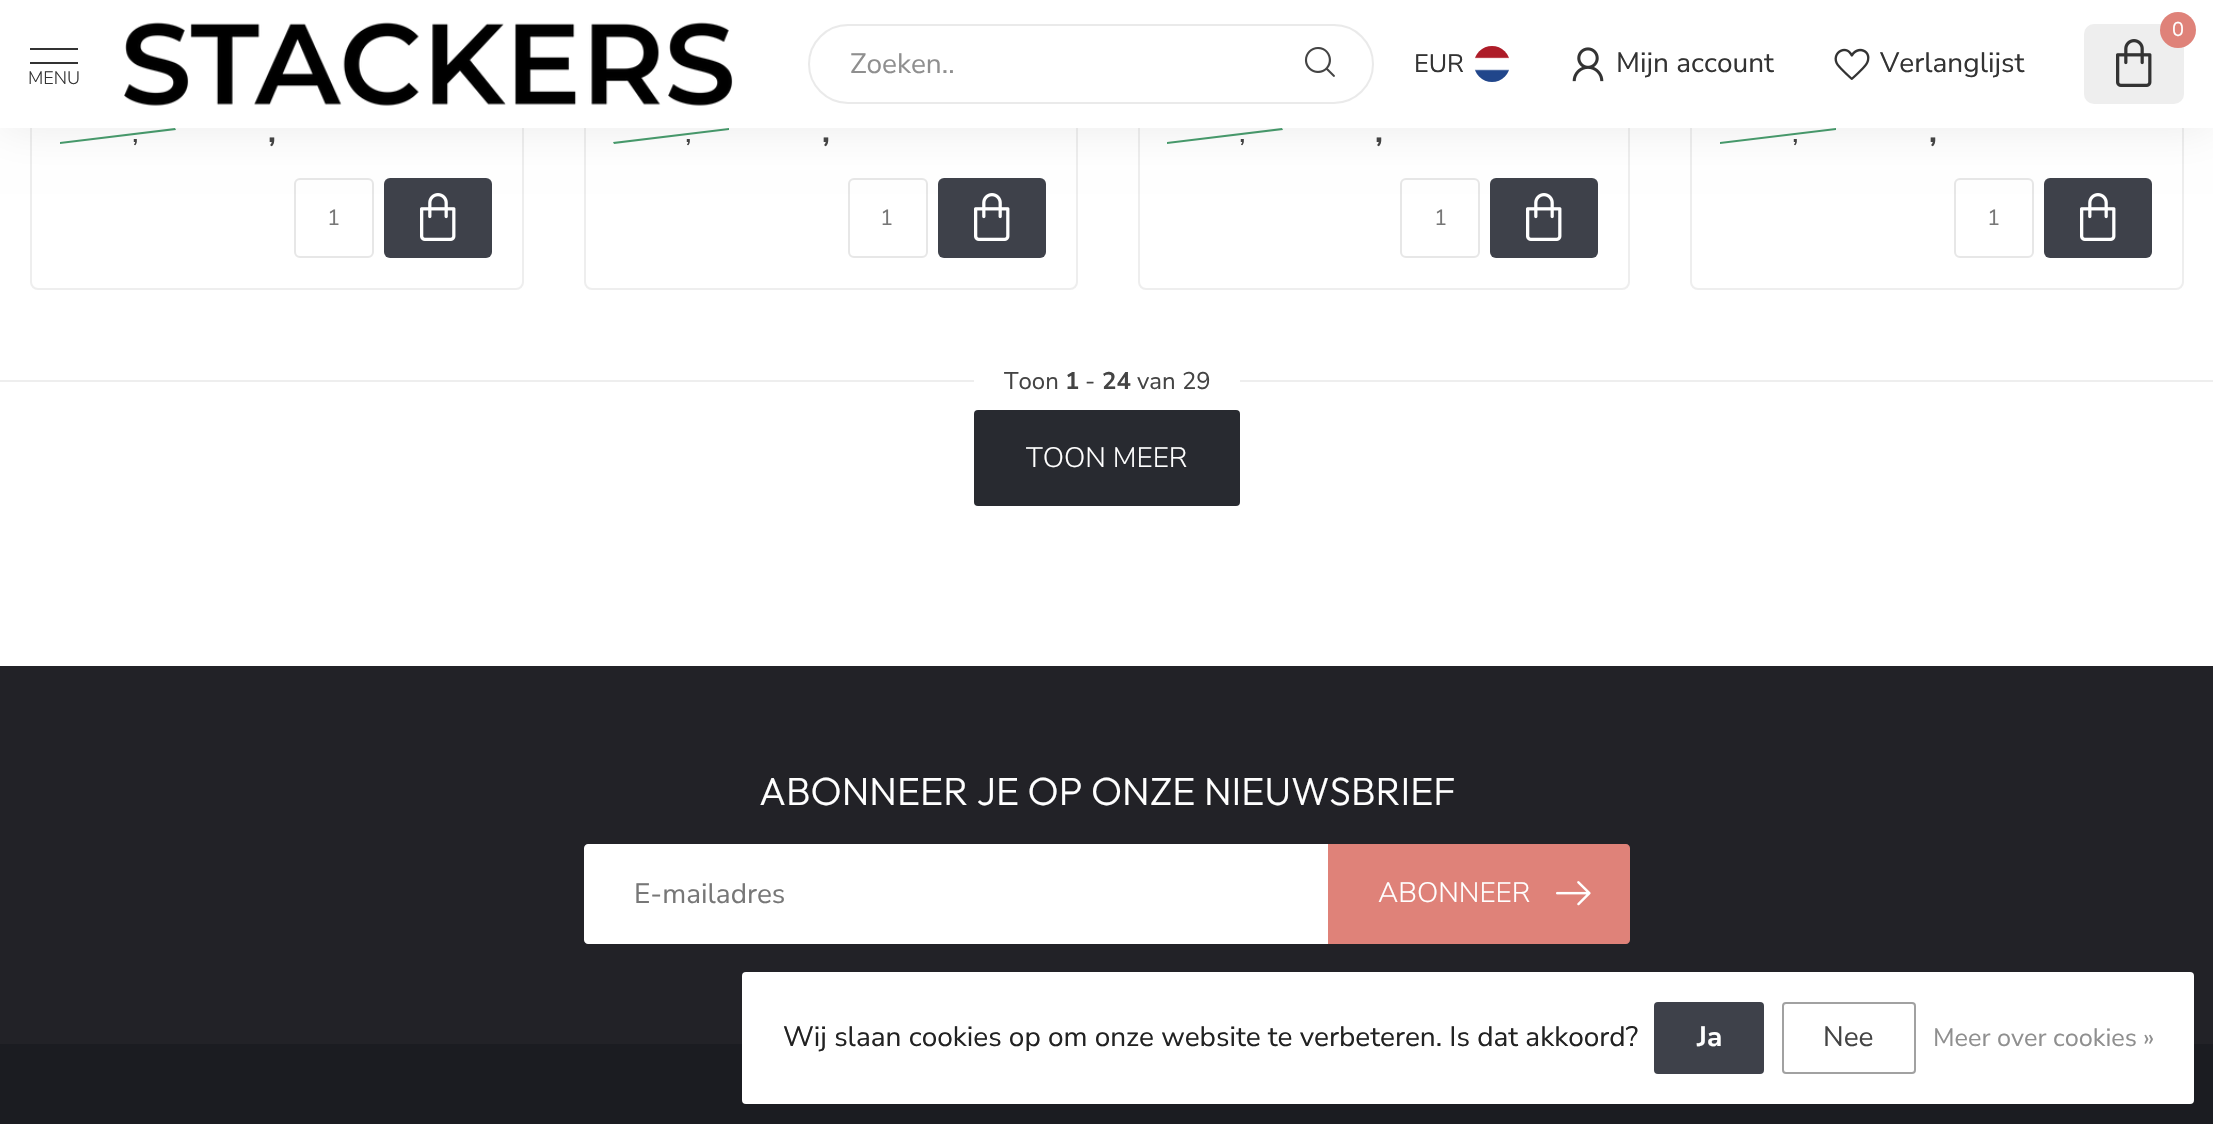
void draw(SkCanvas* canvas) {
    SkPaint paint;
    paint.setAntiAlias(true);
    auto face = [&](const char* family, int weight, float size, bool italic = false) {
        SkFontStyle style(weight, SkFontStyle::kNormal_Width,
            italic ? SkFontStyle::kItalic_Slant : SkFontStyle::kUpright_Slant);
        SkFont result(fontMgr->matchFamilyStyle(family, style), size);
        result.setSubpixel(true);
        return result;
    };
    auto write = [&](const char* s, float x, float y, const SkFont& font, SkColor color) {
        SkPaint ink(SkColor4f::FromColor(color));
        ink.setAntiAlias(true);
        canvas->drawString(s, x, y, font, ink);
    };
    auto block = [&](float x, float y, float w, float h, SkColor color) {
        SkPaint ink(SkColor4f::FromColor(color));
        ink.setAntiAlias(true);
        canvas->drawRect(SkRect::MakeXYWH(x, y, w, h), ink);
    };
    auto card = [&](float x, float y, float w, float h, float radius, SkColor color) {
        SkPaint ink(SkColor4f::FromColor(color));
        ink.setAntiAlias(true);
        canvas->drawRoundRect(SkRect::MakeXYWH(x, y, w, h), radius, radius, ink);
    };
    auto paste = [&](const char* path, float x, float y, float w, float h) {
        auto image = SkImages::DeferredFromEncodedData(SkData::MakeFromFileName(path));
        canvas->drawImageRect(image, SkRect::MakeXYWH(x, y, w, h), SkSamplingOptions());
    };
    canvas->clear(SK_ColorWHITE);
    paint.setStyle(SkPaint::kStroke_Style);
    paint.setStrokeWidth(2);
    paint.setColor(SkColorSetRGB(238, 238, 238));
    canvas->drawRoundRect(SkRect::MakeXYWH(31, -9, 492, 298), 7, 7, paint);
    auto kFont1 = face("Nunito Sans", 400, 29);
    write(",", 132, 142, kFont1, SkColorSetRGB(68, 68, 68));
    paint.setStyle(SkPaint::kFill_Style);
    paint.setColor(SkColorSetRGB(72, 156, 109));
    canvas->drawPath(SkPathBuilder().moveTo(60, 142).lineTo(175, 128).lineTo(176, 130).lineTo(60, 144).close().detach(), paint);
    paint.setStyle(SkPaint::kStroke_Style);
    paint.setColor(SkColorSetRGB(231, 231, 231));
    canvas->drawRoundRect(SkRect::MakeXYWH(295, 179, 78, 78), 5, 5, paint);
    card(384, 178, 108, 80, 6, SkColorSetRGB(62, 65, 74));
    paste("pic7.png", 420, 193, 36, 48);
    paint.setColor(SkColorSetRGB(238, 238, 238));
    canvas->drawRoundRect(SkRect::MakeXYWH(585, -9, 492, 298), 7, 7, paint);
    write(",", 685, 142, kFont1, SkColorSetRGB(68, 68, 68));
    paint.setStyle(SkPaint::kFill_Style);
    paint.setColor(SkColorSetRGB(72, 156, 109));
    canvas->drawPath(SkPathBuilder().moveTo(613, 142).lineTo(729, 128).lineTo(729, 130).lineTo(614, 144).close().detach(), paint);
    paint.setStyle(SkPaint::kStroke_Style);
    paint.setColor(SkColorSetRGB(231, 231, 231));
    canvas->drawRoundRect(SkRect::MakeXYWH(849, 179, 78, 78), 5, 5, paint);
    card(938, 178, 108, 80, 6, SkColorSetRGB(62, 65, 74));
    paste("pic7.png", 974, 193, 36, 48);
    paint.setColor(SkColorSetRGB(238, 238, 238));
    canvas->drawRoundRect(SkRect::MakeXYWH(1139, -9, 490, 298), 7, 7, paint);
    write(",", 1239, 142, kFont1, SkColorSetRGB(68, 68, 68));
    paint.setStyle(SkPaint::kFill_Style);
    paint.setColor(SkColorSetRGB(72, 156, 109));
    canvas->drawPath(SkPathBuilder().moveTo(1167, 142).lineTo(1282, 128).lineTo(1283, 130).lineTo(1167, 144).close().detach(), paint);
    paint.setStyle(SkPaint::kStroke_Style);
    paint.setColor(SkColorSetRGB(231, 231, 231));
    canvas->drawRoundRect(SkRect::MakeXYWH(1401, 179, 78, 78), 5, 5, paint);
    card(1490, 178, 108, 80, 6, SkColorSetRGB(62, 65, 74));
    paste("pic7.png", 1526, 193, 36, 48);
    paint.setColor(SkColorSetRGB(238, 238, 238));
    canvas->drawRoundRect(SkRect::MakeXYWH(1691, -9, 492, 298), 7, 7, paint);
    write(",", 1792, 142, kFont1, SkColorSetRGB(68, 68, 68));
    paint.setStyle(SkPaint::kFill_Style);
    paint.setColor(SkColorSetRGB(72, 156, 109));
    canvas->drawPath(SkPathBuilder().moveTo(1720, 142).lineTo(1836, 128).lineTo(1836, 130).lineTo(1720, 144).close().detach(), paint);
    paint.setStyle(SkPaint::kStroke_Style);
    paint.setColor(SkColorSetRGB(231, 231, 231));
    canvas->drawRoundRect(SkRect::MakeXYWH(1955, 179, 78, 78), 5, 5, paint);
    card(2044, 178, 108, 80, 6, SkColorSetRGB(62, 65, 74));
    paste("pic7.png", 2080, 193, 36, 48);
    paint.setStyle(SkPaint::kFill_Style);
    paint.setColor(SkColorSetARGB(20, 0, 0, 0));
    paint.setMaskFilter(SkMaskFilter::MakeBlur(kNormal_SkBlurStyle, 22));
    canvas->drawRect(SkRect::MakeXYWH(0, -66, 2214, 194), paint);
    paint.setMaskFilter(nullptr);
    block(0, 0, 2213, 128, SK_ColorWHITE);
    paste("pic1.png", 124, 22, 609, 84);
    paint.setStyle(SkPaint::kStroke_Style);
    paint.setColor(SkColorSetRGB(234, 234, 234));
    canvas->drawRoundRect(SkRect::MakeXYWH(809, 25, 564, 78), 39, 39, paint);
    auto kFont2 = face("Nunito Sans", 400, 28);
    write("Zoeken..", 850, 73, kFont2, SkColorSetRGB(143, 143, 143));
    paste("pic2.png", 1304, 47, 31, 30);
    block(30, 48, 48, 2, SkColorSetRGB(51, 51, 51));
    block(30, 62, 48, 2, SkColorSetRGB(51, 51, 51));
    auto kFont3 = face("Nunito Sans", 300, 18);
    write("MENU", 28, 84, kFont3, SkColorSetRGB(51, 51, 51));
    card(2084, 24, 100, 80, 10, SkColorSetRGB(238, 238, 238));
    paint.setStyle(SkPaint::kFill_Style);
    paint.setColor(SkColorSetRGB(223, 130, 121));
    canvas->drawCircle(2178, 30, 18, paint);
    auto kFont4 = face("Nunito Sans", 400, 20);
    write("0", 2172, 36, kFont4, SK_ColorWHITE);
    paste("pic3.png", 2116, 39, 36, 48);
    auto kFont5 = face("Nunito Sans", 400, 25.25f);
    write("EUR", 1414, 72, kFont5, SkColorSetRGB(51, 51, 51));
    paste("pic4.png", 1474, 46, 35, 36);
    paste("pic5.png", 1572, 47, 32, 35);
    write("Mijn account", 1616, 72, kFont2, SkColorSetRGB(51, 51, 51));
    paste("pic6.png", 1834, 48, 36, 32);
    write("Verlanglijst", 1880, 72, kFont2, SkColorSetRGB(51, 51, 51));
    auto kFont6 = face("Nunito Sans", 700, 32);
    write(",", 268, 142, kFont6, SkColorSetRGB(68, 68, 68));
    auto kFont7 = face("Nunito Sans", 400, 22);
    write("1", 327, 225, kFont7, SkColorSetRGB(119, 119, 119));
    write(",", 822, 142, kFont6, SkColorSetRGB(68, 68, 68));
    write("1", 880, 225, kFont7, SkColorSetRGB(119, 119, 119));
    write(",", 1375, 142, kFont6, SkColorSetRGB(68, 68, 68));
    write("1", 1434, 225, kFont7, SkColorSetRGB(119, 119, 119));
    write(",", 1929, 142, kFont6, SkColorSetRGB(68, 68, 68));
    write("1", 1987, 225, kFont7, SkColorSetRGB(119, 119, 119));
    block(0, 380, 2213, 2, SkColorSetRGB(238, 238, 238));
    block(974, 380, 266, 2, SK_ColorWHITE);
    auto kFont8 = face("Nunito Sans", 400, 24);
    write("Toon", 1004, 389, kFont8, SkColorSetRGB(68, 68, 68));
    auto kFont9 = face("Nunito Sans", 700, 24);
    write("1", 1065, 389, kFont9, SkColorSetRGB(68, 68, 68));
    write("24", 1102, 389, kFont9, SkColorSetRGB(68, 68, 68));
    write("van 29", 1137, 389, kFont8, SkColorSetRGB(68, 68, 68));
    write("-", 1085, 389, kFont8, SkColorSetRGB(68, 68, 68));
    card(974, 410, 266, 96, 4, SkColorSetRGB(40, 42, 48));
    auto kFont10 = face("Nunito Sans", 300, 28);
    write("TOON MEER", 1026, 467, kFont10, SK_ColorWHITE);
    block(0, 1044, 2213, 80, SkColorSetRGB(27, 28, 33));
    block(0, 666, 2213, 378, SkColorSetRGB(34, 34, 39));
    auto kFont11 = face("Outfit", 300, 39.25f);
    write("ABONNEER JE OP ONZE NIEUWSBRIEF", 759, 805, kFont11, SK_ColorWHITE);
    paint.setColor(SK_ColorWHITE);
    canvas->drawPath(SkPathBuilder().moveTo(588, 844).lineTo(1328, 844).lineTo(1328, 944).lineTo(588, 944).cubicTo(586, 944, 584, 942, 584, 940).lineTo(584, 848).cubicTo(584, 846, 586, 844, 588, 844).close().detach(), paint);
    write("E-mailadres", 634, 903, kFont2, SkColorSetRGB(119, 119, 119));
    paint.setColor(SkColorSetRGB(223, 130, 121));
    canvas->drawPath(SkPathBuilder().moveTo(1328, 844).lineTo(1626, 844).cubicTo(1628, 844, 1630, 846, 1630, 848).lineTo(1630, 940).cubicTo(1630, 942, 1628, 944, 1626, 944).lineTo(1328, 944).close().detach(), paint);
    write("ABONNEER", 1378, 902, kFont10, SK_ColorWHITE);
    paste("pic8.png", 1556, 881, 35, 25);
    card(742, 972, 1452, 132, 4, SK_ColorWHITE);
    write("Wij slaan cookies op om onze website te verbeteren. Is dat akkoord?", 783, 1046, kFont2, SkColorSetRGB(34, 34, 34));
    card(1654, 1002, 110, 72, 4, SkColorSetRGB(62, 65, 74));
    auto kFont12 = face("Nunito Sans", 700, 28);
    write("Ja", 1697, 1046, kFont12, SK_ColorWHITE);
    paint.setStyle(SkPaint::kStroke_Style);
    paint.setColor(SkColorSetRGB(161, 161, 161));
    canvas->drawRoundRect(SkRect::MakeXYWH(1783, 1003, 132, 70), 3, 3, paint);
    write("Nee", 1823, 1046, kFont2, SkColorSetRGB(68, 68, 68));
    write("Meer over cookies »", 1933, 1046, kFont5, SkColorSetRGB(143, 143, 143));
}
